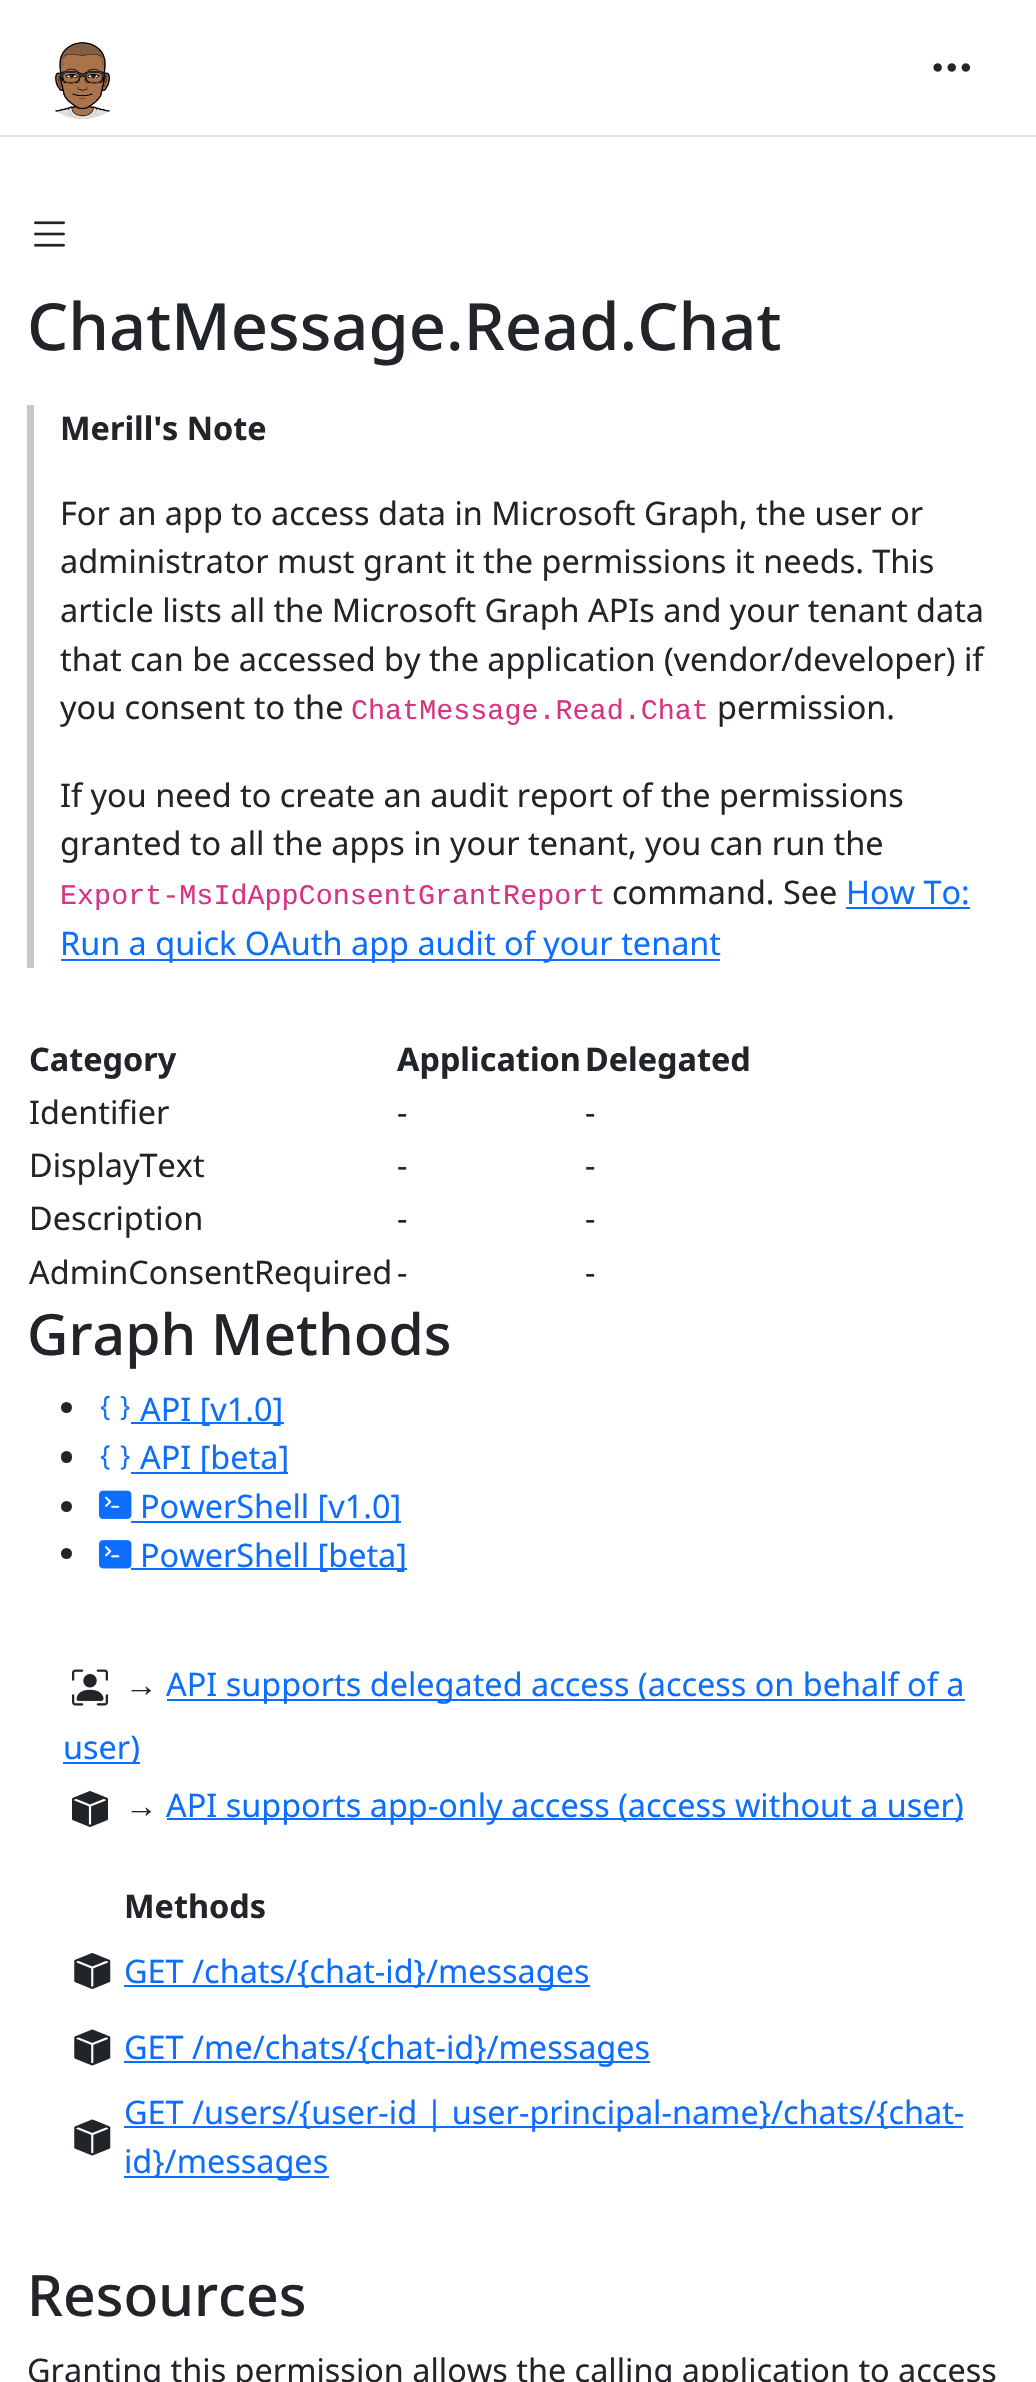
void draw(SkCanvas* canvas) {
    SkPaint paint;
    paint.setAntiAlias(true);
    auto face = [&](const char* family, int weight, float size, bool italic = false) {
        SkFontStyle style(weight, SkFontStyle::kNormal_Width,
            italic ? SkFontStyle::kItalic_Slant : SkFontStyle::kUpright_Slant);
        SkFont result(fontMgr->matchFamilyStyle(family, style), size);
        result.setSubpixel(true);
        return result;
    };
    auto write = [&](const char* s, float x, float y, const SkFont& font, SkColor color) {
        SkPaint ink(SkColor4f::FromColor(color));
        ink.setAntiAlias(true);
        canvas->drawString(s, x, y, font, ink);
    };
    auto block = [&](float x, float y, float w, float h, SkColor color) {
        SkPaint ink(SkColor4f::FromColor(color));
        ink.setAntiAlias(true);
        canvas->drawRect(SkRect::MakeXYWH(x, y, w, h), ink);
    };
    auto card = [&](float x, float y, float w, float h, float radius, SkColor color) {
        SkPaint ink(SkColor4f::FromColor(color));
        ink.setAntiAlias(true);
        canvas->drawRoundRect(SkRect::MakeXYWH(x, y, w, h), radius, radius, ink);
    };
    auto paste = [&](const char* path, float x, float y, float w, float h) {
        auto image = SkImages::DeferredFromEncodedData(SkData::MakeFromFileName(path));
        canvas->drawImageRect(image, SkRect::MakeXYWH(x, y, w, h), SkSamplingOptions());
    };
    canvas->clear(SK_ColorWHITE);
    block(0, 135, 1036, 2, SkColorSetRGB(222, 226, 230));
    paste("pic1.png", 54, 42, 56, 77);
    paste("pic2.png", 933, 63, 38, 9);
    paste("pic3.png", 34, 221, 31, 26);
    auto kFont1 = face("Noto Sans", 500, 65);
    write("ChatMessage.Read.Chat", 27, 350, kFont1, SkColorSetRGB(33, 37, 41));
    block(27, 405, 7, 563, SkColorSetRGB(196, 200, 203));
    auto kFont2 = face("Noto Sans", 700, 32.4f);
    write("Merill's Note", 60, 440, kFont2, SkColorSetRGB(33, 37, 41));
    auto kFont3 = face("Noto Sans", 400, 32.4f);
    write("For an app to access data in Microsoft Graph, the user or", 60, 525, kFont3, SkColorSetRGB(33, 37, 41));
    write("administrator must grant it the permissions it needs. This", 60, 573, kFont3, SkColorSetRGB(33, 37, 41));
    write("article lists all the Microsoft Graph APIs and your tenant data", 60, 622, kFont3, SkColorSetRGB(33, 37, 41));
    write("that can be accessed by the application (vendor/developer) if", 60, 671, kFont3, SkColorSetRGB(33, 37, 41));
    write("you consent to the", 60, 719, kFont3, SkColorSetRGB(33, 37, 41));
    auto kFont4 = face("Liberation Mono", 400, 28.4f);
    write("ChatMessage.Read.Chat", 351, 719, kFont4, SkColorSetRGB(214, 51, 132));
    write("permission.", 717, 719, kFont3, SkColorSetRGB(33, 37, 41));
    write("If you need to create an audit report of the permissions", 60, 807, kFont3, SkColorSetRGB(33, 37, 41));
    write("granted to all the apps in your tenant, you can run the", 60, 855, kFont3, SkColorSetRGB(33, 37, 41));
    write("Export-MsIdAppConsentGrantReport", 60, 904, kFont4, SkColorSetRGB(214, 51, 132));
    write("command. See", 612, 904, kFont3, SkColorSetRGB(33, 37, 41));
    write("How To:", 846, 904, kFont3, SkColorSetRGB(13, 110, 253));
    block(846, 907, 124, 2, SkColorSetRGB(13, 110, 253));
    block(61, 959, 659, 2, SkColorSetRGB(13, 110, 253));
    write("Run a quick OAuth app audit of your tenant", 60, 955, kFont3, SkColorSetRGB(13, 110, 253));
    write("Category", 29, 1071, kFont2, SkColorSetRGB(33, 37, 41));
    write("Application", 397, 1071, kFont2, SkColorSetRGB(33, 37, 41));
    write("Delegated", 585, 1071, kFont2, SkColorSetRGB(33, 37, 41));
    write("Identifier", 29, 1124, kFont3, SkColorSetRGB(33, 37, 41));
    write("-", 397, 1124, kFont3, SkColorSetRGB(33, 37, 41));
    write("-", 585, 1124, kFont3, SkColorSetRGB(33, 37, 41));
    write("DisplayText", 29, 1177, kFont3, SkColorSetRGB(33, 37, 41));
    write("-", 397, 1177, kFont3, SkColorSetRGB(33, 37, 41));
    write("-", 585, 1177, kFont3, SkColorSetRGB(33, 37, 41));
    write("Description", 29, 1230, kFont3, SkColorSetRGB(33, 37, 41));
    write("-", 397, 1230, kFont3, SkColorSetRGB(33, 37, 41));
    write("-", 585, 1230, kFont3, SkColorSetRGB(33, 37, 41));
    write("AdminConsentRequired", 29, 1284, kFont3, SkColorSetRGB(33, 37, 41));
    write("-", 397, 1284, kFont3, SkColorSetRGB(33, 37, 41));
    write("-", 585, 1284, kFont3, SkColorSetRGB(33, 37, 41));
    auto kFont5 = face("Noto Sans", 500, 57);
    write("Graph Methods", 27, 1355, kFont5, SkColorSetRGB(33, 37, 41));
    paint.setColor(SkColorSetRGB(33, 37, 41));
    canvas->drawCircle(66.5f, 1407.5f, 5.5f, paint);
    paste("pic4.png", 101, 1395, 29, 26);
    block(131, 1422, 153, 2, SkColorSetRGB(13, 110, 253));
    write("API [v1.0]", 140, 1421, kFont3, SkColorSetRGB(13, 110, 253));
    card(61, 1451, 11, 12, 5.5f, SkColorSetRGB(33, 37, 41));
    paste("pic5.png", 101, 1445, 29, 25);
    block(131, 1472, 157, 2, SkColorSetRGB(13, 110, 253));
    write("API [beta]", 140, 1469, kFont3, SkColorSetRGB(13, 110, 253));
    canvas->drawCircle(66.5f, 1506.5f, 5.5f, paint);
    paste("pic6.png", 99, 1490, 33, 29);
    block(131, 1521, 270, 2, SkColorSetRGB(13, 110, 253));
    write("PowerShell [v1.0]", 140, 1518, kFont3, SkColorSetRGB(13, 110, 253));
    canvas->drawCircle(66.5f, 1553.5f, 5.5f, paint);
    paste("pic7.png", 99, 1540, 33, 29);
    block(131, 1568, 276, 2, SkColorSetRGB(13, 110, 253));
    write("PowerShell [beta]", 140, 1567, kFont3, SkColorSetRGB(13, 110, 253));
    paste("pic8.png", 72, 1669, 36, 37);
    auto kFont6 = face("Liberation Sans", 400, 32.4f);
    write("→", 125, 1696, kFont6, SkColorSetRGB(33, 37, 41));
    block(167, 1699, 798, 2, SkColorSetRGB(13, 110, 253));
    write("API supports delegated access (access on behalf of a", 166, 1696, kFont3, SkColorSetRGB(13, 110, 253));
    block(63, 1762, 77, 2, SkColorSetRGB(13, 110, 253));
    write("user)", 63, 1759, kFont3, SkColorSetRGB(13, 110, 253));
    paste("pic9.png", 72, 1791, 36, 36);
    write("→", 125, 1817, kFont6, SkColorSetRGB(33, 37, 41));
    block(167, 1818, 796, 2, SkColorSetRGB(13, 110, 253));
    write("API supports app-only access (access without a user)", 166, 1817, kFont3, SkColorSetRGB(13, 110, 253));
    write("Methods", 124, 1918, kFont2, SkColorSetRGB(33, 37, 41));
    paste("pic10.png", 74, 1953, 37, 36);
    block(124, 1985, 466, 2, SkColorSetRGB(13, 110, 253));
    write("GET /chats/{chat-id}/messages", 124, 1983, kFont3, SkColorSetRGB(13, 110, 253));
    paste("pic11.png", 74, 2029, 37, 37);
    block(124, 2061, 526, 2, SkColorSetRGB(13, 110, 253));
    write("GET /me/chats/{chat-id}/messages", 124, 2059, kFont3, SkColorSetRGB(13, 110, 253));
    paste("pic11.png", 74, 2119, 37, 37);
    block(124, 2126, 839, 2, SkColorSetRGB(13, 110, 253));
    write("GET /users/{user-id | user-principal-name}/chats/{chat-", 124, 2124, kFont3, SkColorSetRGB(13, 110, 253));
    block(124, 2176, 205, 2, SkColorSetRGB(13, 110, 253));
    write("id}/messages", 124, 2173, kFont3, SkColorSetRGB(13, 110, 253));
    write("Resources", 27, 2316, kFont5, SkColorSetRGB(33, 37, 41));
    write("Granting this permission allows the calling application to access", 27, 2382, kFont3, SkColorSetRGB(33, 37, 41));
}
